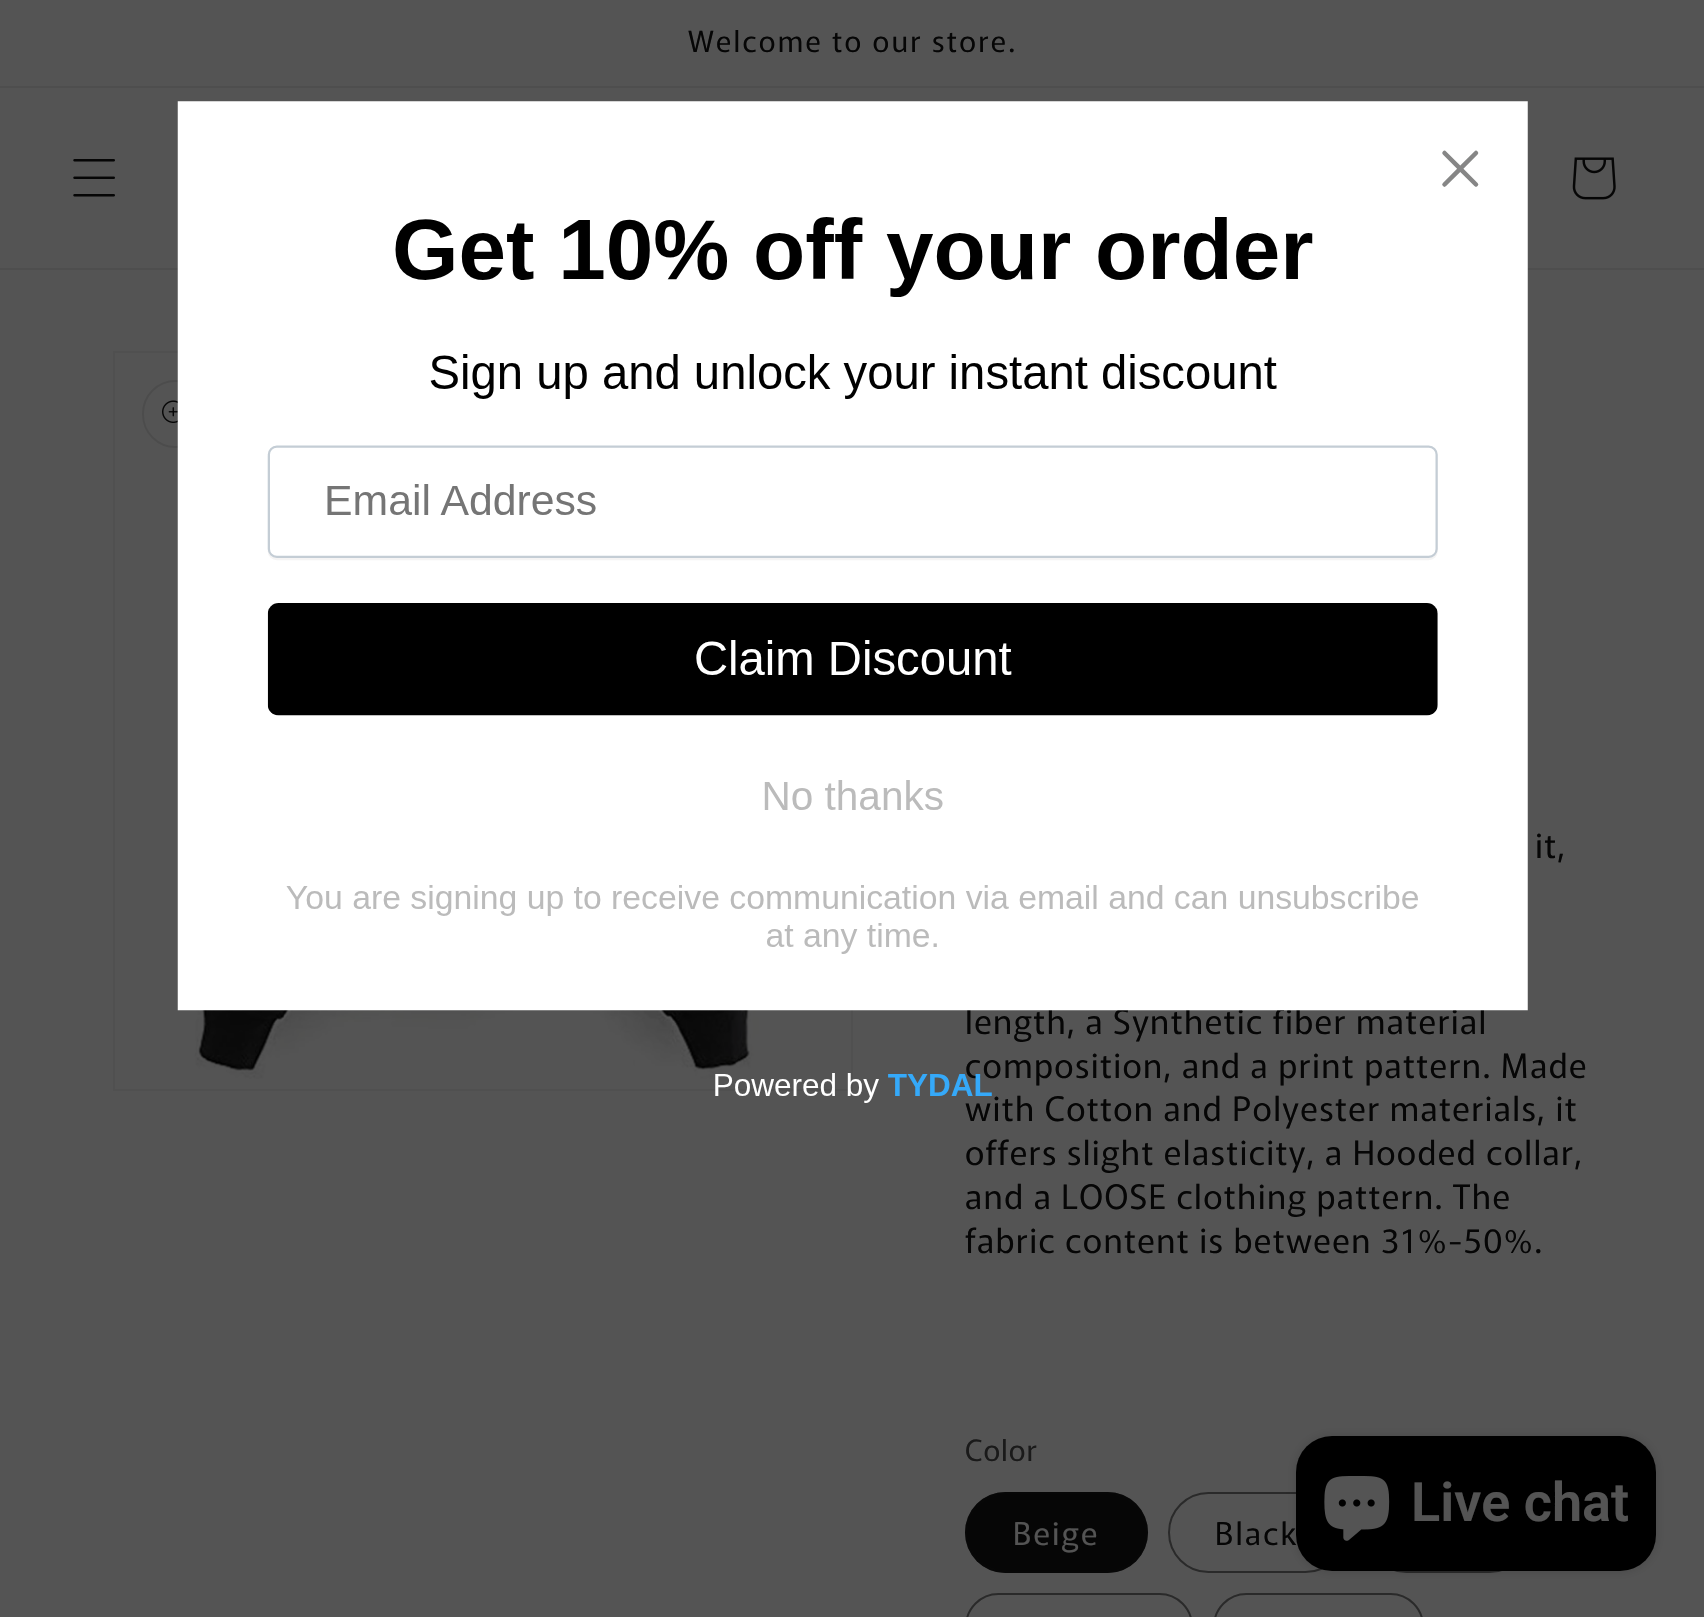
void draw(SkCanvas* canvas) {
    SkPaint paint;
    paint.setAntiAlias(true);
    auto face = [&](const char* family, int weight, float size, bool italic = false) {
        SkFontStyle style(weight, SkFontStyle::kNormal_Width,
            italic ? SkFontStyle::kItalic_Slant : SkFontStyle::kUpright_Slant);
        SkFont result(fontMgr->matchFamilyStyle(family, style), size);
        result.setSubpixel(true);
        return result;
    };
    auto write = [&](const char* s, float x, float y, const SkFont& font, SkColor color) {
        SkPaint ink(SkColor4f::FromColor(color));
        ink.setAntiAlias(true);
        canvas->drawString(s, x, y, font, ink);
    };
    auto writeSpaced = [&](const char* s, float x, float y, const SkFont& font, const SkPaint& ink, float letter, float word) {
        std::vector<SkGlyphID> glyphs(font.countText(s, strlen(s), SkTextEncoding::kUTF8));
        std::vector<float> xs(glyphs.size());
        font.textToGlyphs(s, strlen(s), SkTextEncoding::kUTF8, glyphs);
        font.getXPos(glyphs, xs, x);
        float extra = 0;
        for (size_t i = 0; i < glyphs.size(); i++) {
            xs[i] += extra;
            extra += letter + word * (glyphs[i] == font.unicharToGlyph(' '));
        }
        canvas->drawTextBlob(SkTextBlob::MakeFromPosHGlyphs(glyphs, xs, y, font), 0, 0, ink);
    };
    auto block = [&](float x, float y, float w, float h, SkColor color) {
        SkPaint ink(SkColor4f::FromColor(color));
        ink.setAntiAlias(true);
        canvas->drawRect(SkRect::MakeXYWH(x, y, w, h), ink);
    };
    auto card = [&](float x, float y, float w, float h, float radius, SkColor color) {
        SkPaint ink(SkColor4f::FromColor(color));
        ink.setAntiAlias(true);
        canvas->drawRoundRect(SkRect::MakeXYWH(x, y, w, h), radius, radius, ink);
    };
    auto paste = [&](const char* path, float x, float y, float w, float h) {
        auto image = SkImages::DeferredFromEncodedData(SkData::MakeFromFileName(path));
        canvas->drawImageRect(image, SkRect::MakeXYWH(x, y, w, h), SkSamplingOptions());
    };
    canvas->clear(SK_ColorWHITE);
    block(0, 86, 1704, 2, SkColorSetRGB(236, 236, 236));
    auto kFont1 = face("Murecho", 400, 29.25f);
    paint.setColor(SkColorSetRGB(18, 18, 18));
    writeSpaced("Welcome to our store.", 688, 52, kFont1, paint, 2.25f, 0);
    block(0, 268, 1704, 2, SkColorSetRGB(236, 236, 236));
    paste("pic2.png", 73, 159, 42, 38);
    paste("pic3.png", 1572, 157, 44, 43);
    paint.setStyle(SkPaint::kStroke_Style);
    paint.setStrokeWidth(2);
    paint.setColor(SkColorSetRGB(243, 243, 243));
    canvas->drawRect(SkRect::MakeXYWH(114, 352, 738, 738), paint);
    paint.setColor(SkColorSetRGB(231, 231, 231));
    canvas->drawRoundRect(SkRect::MakeXYWH(143, 381, 65, 66), 32.5f, 32.5f, paint);
    paste("pic4.png", 162, 400, 16, 23);
    paste("pic5.png", 192, 1010, 572, 69);
    auto kFont2 = face("Murecho", 400, 33.75f);
    paint.setStyle(SkPaint::kFill_Style);
    paint.setColor(SkColorSetRGB(18, 18, 18));
    writeSpaced("it,", 1535, 858, kFont2, paint, 1.35f, 0);
    writeSpaced("length, a Synthetic fiber material", 965, 1034, kFont2, paint, 1.35f, 0);
    writeSpaced("composition, and a print pattern. Made", 965, 1078, kFont2, paint, 1.35f, 0);
    writeSpaced("with Cotton and Polyester materials, it", 965, 1121, kFont2, paint, 1.35f, 0);
    writeSpaced("offers slight elasticity, a Hooded collar,", 965, 1165, kFont2, paint, 1.35f, 0);
    writeSpaced("and a LOOSE clothing pattern. The", 965, 1209, kFont2, paint, 1.35f, 0);
    writeSpaced("fabric content is between 31%-50%.", 965, 1253, kFont2, paint, 1.35f, 0);
    paint.setColor(SkColorSetRGB(77, 77, 77));
    writeSpaced("Color", 965, 1461, kFont1, paint, 1, 0);
    card(965, 1492, 183, 81, 40.5f, SkColorSetRGB(18, 18, 18));
    paint.setStyle(SkPaint::kStroke_Style);
    paint.setColor(SkColorSetARGB(140, 18, 18, 18));
    canvas->drawRoundRect(SkRect::MakeXYWH(966, 1493, 181, 79), 39.5f, 39.5f, paint);
    auto kFont3 = face("Murecho", 400, 31.5f);
    paint.setStyle(SkPaint::kFill_Style);
    paint.setColor(SK_ColorWHITE);
    writeSpaced("Beige", 1013, 1545, kFont3, paint, 2.25f, 0);
    paint.setStyle(SkPaint::kStroke_Style);
    paint.setColor(SkColorSetRGB(125, 125, 125));
    canvas->drawRoundRect(SkRect::MakeXYWH(1169, 1493, 176, 79), 39.5f, 39.5f, paint);
    paint.setStyle(SkPaint::kFill_Style);
    paint.setColor(SkColorSetRGB(18, 18, 18));
    writeSpaced("Black", 1215, 1545, kFont3, paint, 2.25f, 0);
    paint.setStyle(SkPaint::kStroke_Style);
    paint.setColor(SkColorSetRGB(125, 125, 125));
    canvas->drawRoundRect(SkRect::MakeXYWH(1367, 1493, 162, 79), 39.5f, 39.5f, paint);
    canvas->drawRoundRect(SkRect::MakeXYWH(966, 1594, 226, 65), 39.5f, 39.5f, paint);
    canvas->drawRoundRect(SkRect::MakeXYWH(1214, 1594, 209, 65), 39.5f, 39.5f, paint);
    paint.setStyle(SkPaint::kFill_Style);
    paint.setColor(SkColorSetARGB(38, 0, 0, 0));
    paint.setMaskFilter(SkMaskFilter::MakeBlur(kNormal_SkBlurStyle, 5.5f));
    canvas->drawRoundRect(SkRect::MakeXYWH(1296, 1436, 360, 135), 36, 36, paint);
    paint.setMaskFilter(nullptr);
    card(1296, 1436, 360, 135, 36, SK_ColorBLACK);
    paste("pic6.png", 1324, 1476, 66, 65);
    auto kFont4 = face("Roboto", 600, 54);
    write("Live chat", 1411, 1521, kFont4, SK_ColorWHITE);
    paste("pic1.png", 0, 0, 1704, 1617);
}
